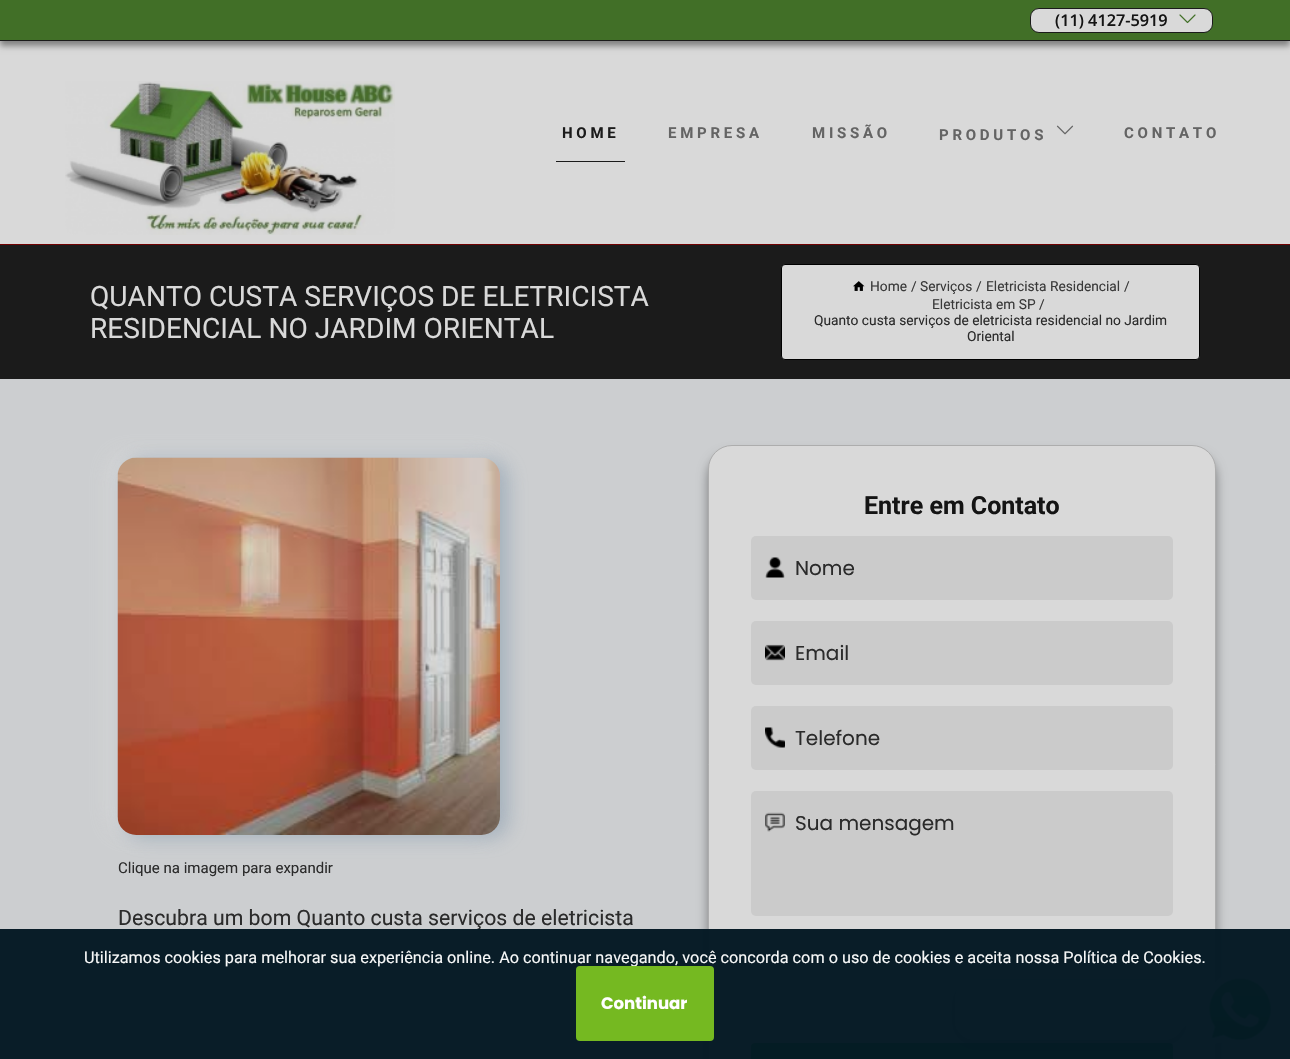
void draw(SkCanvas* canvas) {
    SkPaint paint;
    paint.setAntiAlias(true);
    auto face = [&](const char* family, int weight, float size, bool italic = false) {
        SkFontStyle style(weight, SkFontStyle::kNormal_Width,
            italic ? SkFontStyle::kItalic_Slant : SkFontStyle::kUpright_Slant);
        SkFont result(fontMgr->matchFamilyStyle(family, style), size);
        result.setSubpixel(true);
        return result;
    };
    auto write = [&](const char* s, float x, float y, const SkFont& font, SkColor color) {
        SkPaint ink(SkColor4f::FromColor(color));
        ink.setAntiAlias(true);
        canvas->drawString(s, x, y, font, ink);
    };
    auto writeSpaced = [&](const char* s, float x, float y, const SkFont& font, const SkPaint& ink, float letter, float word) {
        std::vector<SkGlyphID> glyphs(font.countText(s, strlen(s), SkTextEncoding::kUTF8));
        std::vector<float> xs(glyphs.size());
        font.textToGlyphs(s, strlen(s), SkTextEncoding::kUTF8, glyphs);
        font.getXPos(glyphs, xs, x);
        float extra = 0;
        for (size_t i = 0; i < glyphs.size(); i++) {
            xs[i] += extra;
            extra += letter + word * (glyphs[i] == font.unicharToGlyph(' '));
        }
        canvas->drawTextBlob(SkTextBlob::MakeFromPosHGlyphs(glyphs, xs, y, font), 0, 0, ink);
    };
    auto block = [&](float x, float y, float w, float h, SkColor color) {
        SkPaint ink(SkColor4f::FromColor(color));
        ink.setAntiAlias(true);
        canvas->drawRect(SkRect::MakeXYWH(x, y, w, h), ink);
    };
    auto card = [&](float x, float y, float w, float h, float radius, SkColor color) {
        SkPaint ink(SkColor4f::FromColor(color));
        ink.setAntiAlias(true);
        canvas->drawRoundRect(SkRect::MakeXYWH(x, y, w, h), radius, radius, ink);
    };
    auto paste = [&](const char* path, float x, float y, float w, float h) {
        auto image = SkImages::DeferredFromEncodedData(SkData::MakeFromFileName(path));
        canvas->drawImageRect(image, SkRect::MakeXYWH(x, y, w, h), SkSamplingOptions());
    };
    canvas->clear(SkColorSetRGB(204, 206, 208));
    block(0, 41, 1290, 203, SkColorSetRGB(217, 217, 217));
    paint.setColor(SkColorSetARGB(102, 0, 0, 0));
    paint.setMaskFilter(SkMaskFilter::MakeBlur(kNormal_SkBlurStyle, 3));
    canvas->drawRect(SkRect::MakeXYWH(0, 5, 1290, 41), paint);
    paint.setMaskFilter(nullptr);
    block(0, 0, 1290, 40, SkColorSetRGB(65, 111, 39));
    block(0, 40, 1290, 1, SkColorSetRGB(27, 27, 27));
    paint.setColor(SkColorSetRGB(217, 217, 217));
    canvas->drawRoundRect(SkRect::MakeXYWH(1030.5f, 8.5f, 182, 24), 8.5f, 8.5f, paint);
    paint.setStyle(SkPaint::kStroke_Style);
    paint.setStrokeWidth(1);
    paint.setColor(SkColorSetRGB(27, 27, 27));
    canvas->drawRoundRect(SkRect::MakeXYWH(1030.5f, 8.5f, 182, 24), 8.5f, 8.5f, paint);
    auto kFont1 = face("Open Sans", 600, 16.25f);
    write("(11) 4127-5919", 1055, 26, kFont1, SkColorSetRGB(20, 20, 20));
    paste("pic1.png", 1179, 14, 17, 10);
    paste("pic2.png", 65, 81, 330, 154);
    auto kFont2 = face("Roboto", 700, 15);
    paint.setStyle(SkPaint::kFill_Style);
    writeSpaced("HOME", 562, 138, kFont2, paint, 3.75f, 0);
    block(556, 161, 69, 1, SkColorSetRGB(27, 27, 27));
    paint.setColor(SkColorSetRGB(100, 100, 100));
    writeSpaced("EMPRESA", 668, 138, kFont2, paint, 3.75f, 0);
    writeSpaced("MISSÃO", 812, 138, kFont2, paint, 3.75f, 0);
    writeSpaced("PRODUTOS", 939, 140, kFont2, paint, 3.75f, 0);
    paste("pic3.png", 1056, 125, 18, 10);
    writeSpaced("CONTATO", 1124, 138, kFont2, paint, 3.75f, 0);
    block(0, 245, 1290, 134, SkColorSetRGB(27, 27, 27));
    block(0, 244, 1290, 1, SkColorSetRGB(112, 2, 2));
    auto kFont3 = face("Roboto", 400, 28.1f);
    write("QUANTO CUSTA SERVIÇOS DE ELETRICISTA", 90, 306, kFont3, SkColorSetRGB(217, 217, 217));
    write("RESIDENCIAL NO JARDIM ORIENTAL", 90, 338, kFont3, SkColorSetRGB(217, 217, 217));
    paint.setColor(SkColorSetRGB(217, 217, 217));
    canvas->drawRoundRect(SkRect::MakeXYWH(781.5f, 264.5f, 418, 95), 3.5f, 3.5f, paint);
    paint.setStyle(SkPaint::kStroke_Style);
    paint.setColor(SK_ColorBLACK);
    canvas->drawRoundRect(SkRect::MakeXYWH(781.5f, 264.5f, 418, 95), 3.5f, 3.5f, paint);
    paste("pic4.png", 853, 281, 12, 10);
    auto kFont4 = face("Roboto", 400, 13.75f);
    write("Home", 870, 291, kFont4, SkColorSetRGB(58, 58, 58));
    write("/", 911, 291, kFont4, SkColorSetRGB(58, 58, 58));
    write("Serviços", 920, 291, kFont4, SkColorSetRGB(58, 58, 58));
    write("/", 976, 291, kFont4, SkColorSetRGB(58, 58, 58));
    write("Eletricista Residencial", 986, 291, kFont4, SkColorSetRGB(58, 58, 58));
    write("/", 1124, 291, kFont4, SkColorSetRGB(58, 58, 58));
    write("Eletricista em SP", 932, 309, kFont4, SkColorSetRGB(58, 58, 58));
    write("/", 1039, 309, kFont4, SkColorSetRGB(58, 58, 58));
    write("Quanto custa serviços de eletricista residencial no Jardim", 814, 325, kFont4, SkColorSetRGB(43, 43, 43));
    write("Oriental", 967, 341, kFont4, SkColorSetRGB(43, 43, 43));
    paint.setStyle(SkPaint::kFill_Style);
    paint.setColor(SkColorSetARGB(102, 0, 0, 0));
    paint.setMaskFilter(SkMaskFilter::MakeBlur(kNormal_SkBlurStyle, 5.5f));
    canvas->drawRoundRect(SkRect::MakeXYWH(708, 454, 508, 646), 24, 24, paint);
    paint.setMaskFilter(nullptr);
    paint.setColor(SkColorSetRGB(217, 217, 217));
    canvas->drawRoundRect(SkRect::MakeXYWH(708.5f, 445.5f, 507, 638), 23.5f, 23.5f, paint);
    paint.setStyle(SkPaint::kStroke_Style);
    paint.setColor(SkColorSetRGB(173, 173, 173));
    canvas->drawRoundRect(SkRect::MakeXYWH(708.5f, 445.5f, 507, 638), 23.5f, 23.5f, paint);
    auto kFont5 = face("Roboto", 700, 25);
    write("Entre em Contato", 864, 514, kFont5, SkColorSetRGB(20, 20, 20));
    card(751, 536, 422, 64, 5, SkColorSetRGB(203, 203, 203));
    paste("pic5.png", 765, 557, 20, 21);
    auto kFont6 = face("Poppins", 400, 20);
    write("Nome", 795, 575, kFont6, SkColorSetRGB(43, 43, 43));
    card(751, 621, 422, 64, 5, SkColorSetRGB(203, 203, 203));
    paste("pic6.png", 765, 644, 20, 17);
    write("Email", 795, 660, kFont6, SkColorSetRGB(43, 43, 43));
    card(751, 706, 422, 64, 5, SkColorSetRGB(203, 203, 203));
    paste("pic7.png", 765, 727, 20, 21);
    write("Telefone", 795, 745, kFont6, SkColorSetRGB(43, 43, 43));
    card(751, 791, 422, 125, 5, SkColorSetRGB(203, 203, 203));
    paste("pic8.png", 765, 812, 20, 20);
    write("Sua mensagem", 795, 830, kFont6, SkColorSetRGB(43, 43, 43));
    card(751, 1043, 422, 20, 4, SkColorSetRGB(62, 170, 75));
    paint.setStyle(SkPaint::kFill_Style);
    paint.setColor(SkColorSetARGB(204, 217, 217, 217));
    paint.setMaskFilter(SkMaskFilter::MakeBlur(kNormal_SkBlurStyle, 10));
    canvas->drawRoundRect(SkRect::MakeXYWH(110, 455, 383, 378), 19, 19, paint);
    paint.setMaskFilter(nullptr);
    paint.setColor(SkColorSetARGB(122, 116, 140, 162));
    paint.setMaskFilter(SkMaskFilter::MakeBlur(kNormal_SkBlurStyle, 10));
    canvas->drawRoundRect(SkRect::MakeXYWH(125, 460, 383, 378), 19, 19, paint);
    paint.setMaskFilter(nullptr);
    paste("pic9.png", 117, 457, 383, 378);
    auto kFont7 = face("Roboto", 400, 15);
    write("Clique na imagem para expandir", 118, 873, kFont7, SkColorSetRGB(43, 43, 43));
    auto kFont8 = face("Roboto", 400, 21.25f);
    write("Descubra um bom Quanto custa serviços de eletricista", 118, 925, kFont8, SkColorSetRGB(43, 43, 43));
    paint.setColor(SkColorSetARGB(82, 12, 26, 31));
    paint.setMaskFilter(SkMaskFilter::MakeBlur(kNormal_SkBlurStyle, 10));
    canvas->drawRoundRect(SkRect::MakeXYWH(955, 983, 229, 60), 19, 19, paint);
    paint.setMaskFilter(nullptr);
    paint.setColor(SkColorSetARGB(31, 12, 26, 31));
    paint.setMaskFilter(SkMaskFilter::MakeBlur(kNormal_SkBlurStyle, 2.5f));
    canvas->drawRoundRect(SkRect::MakeXYWH(955, 983, 229, 60), 19, 19, paint);
    paint.setMaskFilter(nullptr);
    card(955, 980, 229, 60, 19, SkColorSetRGB(217, 217, 217));
    paint.setColor(SkColorSetRGB(217, 217, 217));
    canvas->drawPath(SkPathBuilder().moveTo(1182.5f, 1029).lineTo(1182.5f, 991).lineTo(1201, 1010).close().detach(), paint);
    paste("pic10.png", 1202, 972, 76, 76);
    block(0, 929, 1290, 130, SkColorSetARGB(247, 2, 23, 34));
    auto kFont9 = face("Roboto", 400, 16.25f);
    write("Utilizamos cookies para melhorar sua experiência online. Ao continuar navegando, você concorda com o uso de cookies e aceita nossa Política de Cookies.", 84, 963, kFont9, SkColorSetRGB(247, 248, 248));
    card(576, 966, 138, 75, 4, SkColorSetARGB(247, 120, 190, 32));
    auto kFont10 = face("Poppins", 700, 16.5f);
    write("Continuar", 601, 1009, kFont10, SK_ColorWHITE);
}
